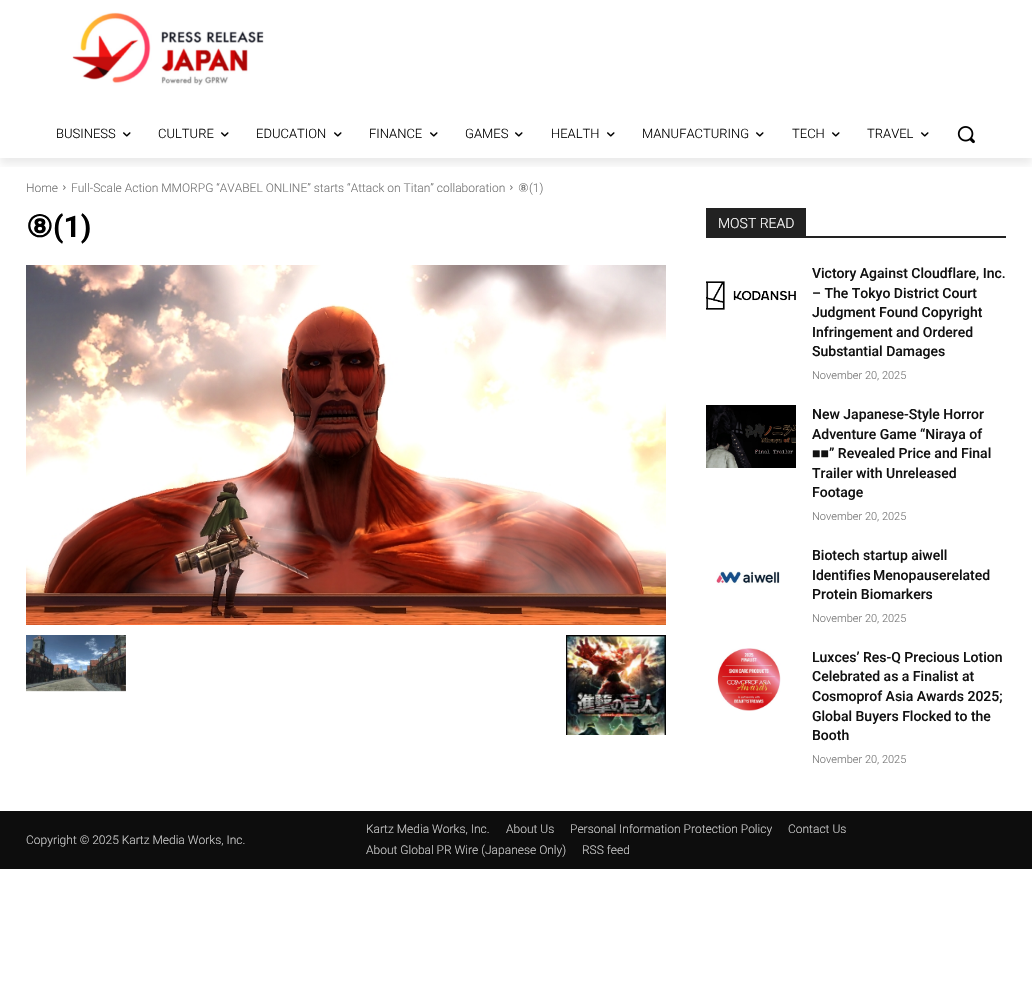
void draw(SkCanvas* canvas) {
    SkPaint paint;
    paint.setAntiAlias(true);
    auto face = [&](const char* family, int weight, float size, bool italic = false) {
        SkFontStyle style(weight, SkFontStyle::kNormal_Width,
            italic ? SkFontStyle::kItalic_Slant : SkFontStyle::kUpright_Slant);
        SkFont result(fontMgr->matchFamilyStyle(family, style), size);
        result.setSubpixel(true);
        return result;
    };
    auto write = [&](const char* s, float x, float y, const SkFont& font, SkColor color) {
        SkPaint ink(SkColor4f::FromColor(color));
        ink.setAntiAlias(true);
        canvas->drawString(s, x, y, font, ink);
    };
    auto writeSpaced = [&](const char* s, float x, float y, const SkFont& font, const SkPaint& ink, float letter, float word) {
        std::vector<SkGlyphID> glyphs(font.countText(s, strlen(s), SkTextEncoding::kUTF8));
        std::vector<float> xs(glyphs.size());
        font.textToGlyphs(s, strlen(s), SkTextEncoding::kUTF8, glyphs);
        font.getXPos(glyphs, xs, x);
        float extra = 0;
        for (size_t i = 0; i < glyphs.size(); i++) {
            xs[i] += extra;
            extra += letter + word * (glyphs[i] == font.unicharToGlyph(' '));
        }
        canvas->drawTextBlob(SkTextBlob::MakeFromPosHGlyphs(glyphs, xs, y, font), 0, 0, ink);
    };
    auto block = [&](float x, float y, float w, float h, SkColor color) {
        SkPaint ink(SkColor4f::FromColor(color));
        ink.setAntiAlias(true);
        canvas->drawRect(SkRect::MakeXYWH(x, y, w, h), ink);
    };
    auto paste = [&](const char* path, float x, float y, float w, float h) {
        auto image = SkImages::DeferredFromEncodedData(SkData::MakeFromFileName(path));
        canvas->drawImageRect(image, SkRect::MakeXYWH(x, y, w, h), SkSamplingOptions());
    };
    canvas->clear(SK_ColorWHITE);
    paste("pic1.png", 72, 12, 192, 74);
    canvas->save();
    canvas->clipRect(SkRect::MakeXYWH(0, 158, 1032, 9));
    paint.setColor(SkColorSetARGB(20, 0, 0, 0));
    paint.setMaskFilter(SkMaskFilter::MakeBlur(kNormal_SkBlurStyle, 4));
    canvas->drawRect(SkRect::MakeXYWH(0, 6, 1032, 158), paint);
    paint.setMaskFilter(nullptr);
    canvas->restore();
    auto kFont1 = face("Roboto", 300, 13);
    write("BUSINESS", 56, 138, kFont1, SK_ColorBLACK);
    paste("pic2.png", 123, 132, 8, 5);
    write("CULTURE", 158, 138, kFont1, SK_ColorBLACK);
    paste("pic2.png", 221, 132, 8, 5);
    write("EDUCATION", 256, 138, kFont1, SK_ColorBLACK);
    paste("pic2.png", 334, 132, 8, 5);
    write("FINANCE", 369, 138, kFont1, SK_ColorBLACK);
    paste("pic2.png", 430, 132, 8, 5);
    write("GAMES", 465, 138, kFont1, SK_ColorBLACK);
    paste("pic2.png", 515, 132, 8, 5);
    write("HEALTH", 551, 138, kFont1, SK_ColorBLACK);
    paste("pic2.png", 607, 132, 8, 5);
    write("MANUFACTURING", 642, 138, kFont1, SK_ColorBLACK);
    paste("pic2.png", 756, 132, 8, 5);
    write("TECH", 792, 138, kFont1, SK_ColorBLACK);
    paste("pic2.png", 832, 132, 8, 5);
    write("TRAVEL", 867, 138, kFont1, SK_ColorBLACK);
    paste("pic2.png", 921, 132, 8, 5);
    paste("pic3.png", 957, 126, 18, 18);
    auto kFont2 = face("Roboto", 300, 12);
    write("Home", 26, 192, kFont2, SkColorSetRGB(116, 116, 116));
    paste("pic4.png", 63, 185, 3, 5);
    write("Full-Scale Action MMORPG “AVABEL ONLINE” starts “Attack on Titan” collaboration", 71, 192, kFont2, SkColorSetRGB(116, 116, 116));
    paste("pic4.png", 510, 185, 3, 5);
    auto kFont3 = face("DejaVu Sans", 400, 12);
    write("⑧", 518, 192, kFont3, SkColorSetRGB(116, 116, 116));
    write("(1)", 529, 192, kFont2, SkColorSetRGB(116, 116, 116));
    auto kFont4 = face("DejaVu Sans", 700, 30);
    write("⑧", 26, 237, kFont4, SK_ColorBLACK);
    auto kFont5 = face("Roboto", 700, 30);
    write("(1)", 53, 237, kFont5, SK_ColorBLACK);
    paste("pic5.png", 26, 265, 640, 360);
    paste("pic6.png", 26, 635, 100, 57);
    paste("pic7.png", 566, 635, 100, 100);
    block(706, 236, 300, 2, SkColorSetRGB(34, 34, 34));
    block(706, 208, 100, 28, SkColorSetRGB(34, 34, 34));
    auto kFont6 = face("Roboto", 300, 14);
    write("MOST READ", 718, 228, kFont6, SK_ColorWHITE);
    paste("pic8.png", 706, 281, 90, 29);
    auto kFont7 = face("Roboto", 500, 14);
    write("Victory Against Cloudflare, Inc.", 812, 278, kFont7, SkColorSetRGB(17, 17, 17));
    write("– The Tokyo District Court", 812, 298, kFont7, SkColorSetRGB(17, 17, 17));
    write("Judgment Found Copyright", 812, 317, kFont7, SkColorSetRGB(17, 17, 17));
    write("Infringement and Ordered", 812, 337, kFont7, SkColorSetRGB(17, 17, 17));
    write("Substantial Damages", 812, 356, kFont7, SkColorSetRGB(17, 17, 17));
    auto kFont8 = face("Roboto", 300, 11);
    write("November 20, 2025", 812, 379, kFont8, SkColorSetRGB(116, 116, 116));
    paste("pic9.png", 706, 405, 90, 63);
    write("New Japanese-Style Horror", 812, 419, kFont7, SkColorSetRGB(17, 17, 17));
    write("Adventure Game “Niraya of", 812, 439, kFont7, SkColorSetRGB(17, 17, 17));
    auto kFont9 = face("Liberation Sans", 400, 14);
    write("■■", 812, 458, kFont9, SkColorSetRGB(17, 17, 17));
    write("” Revealed Price and Final", 829, 458, kFont7, SkColorSetRGB(17, 17, 17));
    write("Trailer with Unreleased", 812, 478, kFont7, SkColorSetRGB(17, 17, 17));
    write("Footage", 812, 497, kFont7, SkColorSetRGB(17, 17, 17));
    write("November 20, 2025", 812, 520, kFont8, SkColorSetRGB(116, 116, 116));
    paste("pic10.png", 716, 571, 64, 14);
    write("Biotech startup aiwell", 812, 560, kFont7, SkColorSetRGB(17, 17, 17));
    paint.setColor(SkColorSetRGB(17, 17, 17));
    writeSpaced("Identifies Menopause‑related", 812, 580, kFont7, paint, 0, -1);
    write("Protein Biomarkers", 812, 599, kFont7, SkColorSetRGB(17, 17, 17));
    write("November 20, 2025", 812, 622, kFont8, SkColorSetRGB(116, 116, 116));
    paste("pic11.png", 717, 648, 64, 63);
    write("Luxces’ Res-Q Precious Lotion", 812, 662, kFont7, SkColorSetRGB(17, 17, 17));
    write("Celebrated as a Finalist at", 812, 681, kFont7, SkColorSetRGB(17, 17, 17));
    write("Cosmoprof Asia Awards 2025;", 812, 701, kFont7, SkColorSetRGB(17, 17, 17));
    write("Global Buyers Flocked to the", 812, 721, kFont7, SkColorSetRGB(17, 17, 17));
    write("Booth", 812, 740, kFont7, SkColorSetRGB(17, 17, 17));
    write("November 20, 2025", 812, 763, kFont8, SkColorSetRGB(116, 116, 116));
    block(0, 811, 1032, 58, SkColorSetRGB(13, 13, 13));
    write("Copyright © 2025 Kartz Media Works, Inc.", 26, 844, kFont2, SkColorSetRGB(204, 204, 204));
    write("Kartz Media Works, Inc.", 366, 833, kFont2, SkColorSetRGB(204, 204, 204));
    write("About Us", 506, 833, kFont2, SkColorSetRGB(204, 204, 204));
    write("Personal Information Protection Policy", 570, 833, kFont2, SkColorSetRGB(204, 204, 204));
    write("Contact Us", 788, 833, kFont2, SkColorSetRGB(204, 204, 204));
    write("About Global PR Wire (Japanese Only)", 366, 854, kFont2, SkColorSetRGB(204, 204, 204));
    write("RSS feed", 582, 854, kFont2, SkColorSetRGB(204, 204, 204));
}
